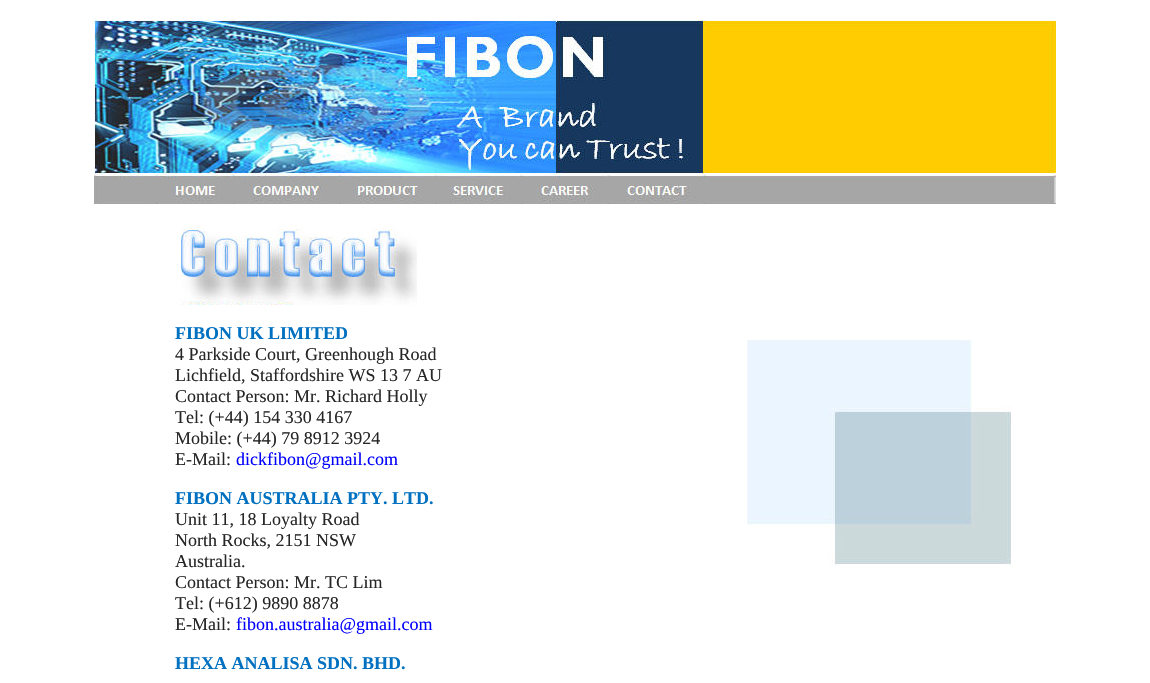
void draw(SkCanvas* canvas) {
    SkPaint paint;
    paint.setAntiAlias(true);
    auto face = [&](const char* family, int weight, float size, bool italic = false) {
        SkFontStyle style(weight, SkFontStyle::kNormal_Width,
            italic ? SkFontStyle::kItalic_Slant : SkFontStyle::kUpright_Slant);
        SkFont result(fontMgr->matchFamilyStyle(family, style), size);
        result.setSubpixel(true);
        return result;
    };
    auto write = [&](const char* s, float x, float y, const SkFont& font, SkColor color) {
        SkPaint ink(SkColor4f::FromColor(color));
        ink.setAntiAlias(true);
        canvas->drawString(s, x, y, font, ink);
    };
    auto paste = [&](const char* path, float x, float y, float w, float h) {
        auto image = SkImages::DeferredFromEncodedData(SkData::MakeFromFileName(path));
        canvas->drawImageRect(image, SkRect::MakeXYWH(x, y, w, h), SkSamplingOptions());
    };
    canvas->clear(SK_ColorWHITE);
    paste("pic1.png", 94, 20, 962, 184);
    paste("pic2.png", 175, 223, 242, 82);
    auto kFont1 = face("Liberation Serif", 700, 18);
    write("FIBON UK LIMITED", 175, 339, kFont1, SkColorSetRGB(0, 112, 192));
    auto kFont2 = face("Liberation Serif", 400, 18);
    write("4 Parkside Court, Greenhough Road", 175, 360, kFont2, SkColorSetRGB(38, 38, 38));
    write("Lichfield, Staffordshire WS 13 7 AU", 175, 381, kFont2, SkColorSetRGB(38, 38, 38));
    write("Contact Person: Mr. Richard Holly", 175, 402, kFont2, SkColorSetRGB(38, 38, 38));
    write("Tel: (+44) 154 330 4167", 175, 423, kFont2, SkColorSetRGB(38, 38, 38));
    write("Mobile: (+44) 79 8912 3924", 175, 444, kFont2, SkColorSetRGB(38, 38, 38));
    write("E-Mail:", 175, 465, kFont2, SkColorSetRGB(38, 38, 38));
    write("dickfibon@gmail.com", 236, 465, kFont2, SkColorSetRGB(0, 0, 255));
    write("FIBON AUSTRALIA PTY. LTD.", 175, 504, kFont1, SkColorSetRGB(0, 112, 192));
    write("Unit 11, 18 Loyalty Road", 175, 525, kFont2, SkColorSetRGB(38, 38, 38));
    write("North Rocks, 2151 NSW", 175, 546, kFont2, SkColorSetRGB(38, 38, 38));
    write("Australia.", 175, 567, kFont2, SkColorSetRGB(38, 38, 38));
    write("Contact Person: Mr. TC Lim", 175, 588, kFont2, SkColorSetRGB(38, 38, 38));
    write("Tel: (+612) 9890 8878", 175, 609, kFont2, SkColorSetRGB(38, 38, 38));
    write("E-Mail:", 175, 630, kFont2, SkColorSetRGB(38, 38, 38));
    write("fibon.australia@gmail.com", 236, 630, kFont2, SkColorSetRGB(0, 0, 255));
    write("HEXA ANALISA SDN. BHD.", 175, 669, kFont1, SkColorSetRGB(0, 112, 192));
    paste("pic3.png", 747, 340, 264, 225);
}
